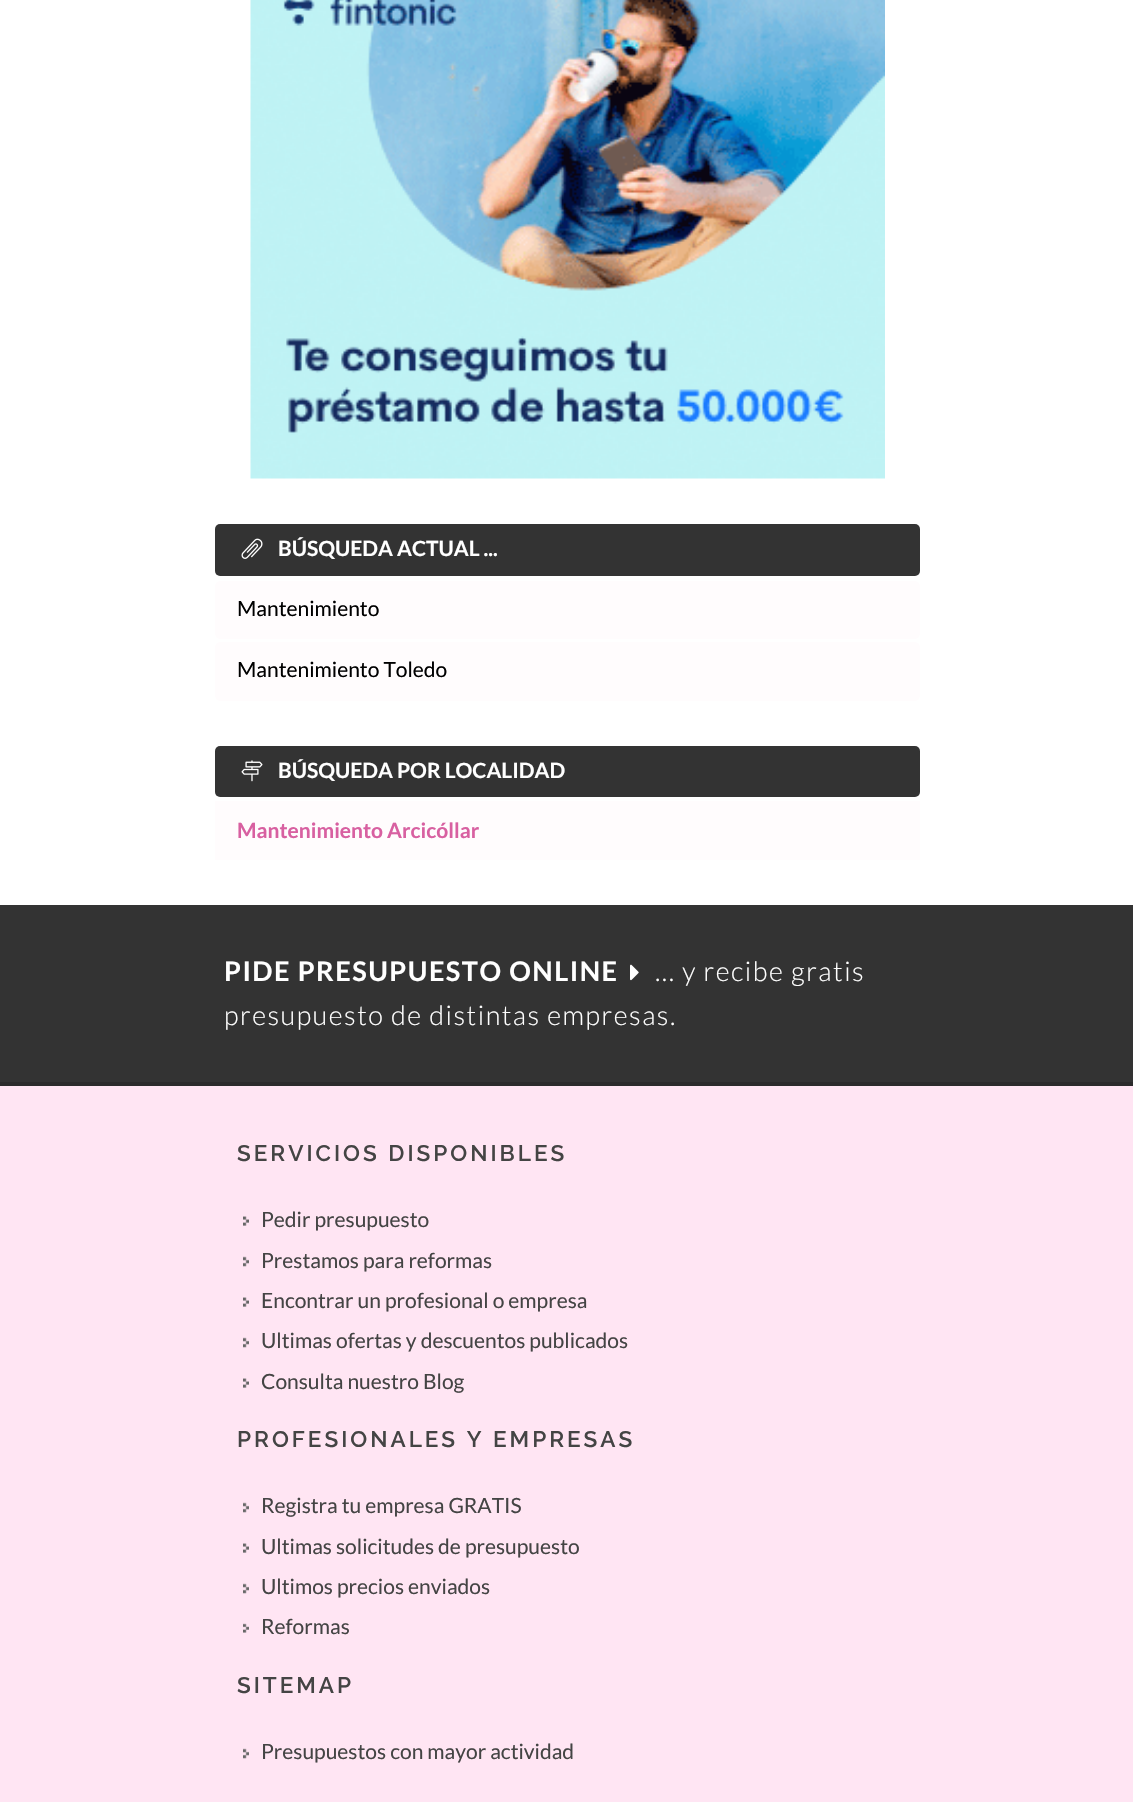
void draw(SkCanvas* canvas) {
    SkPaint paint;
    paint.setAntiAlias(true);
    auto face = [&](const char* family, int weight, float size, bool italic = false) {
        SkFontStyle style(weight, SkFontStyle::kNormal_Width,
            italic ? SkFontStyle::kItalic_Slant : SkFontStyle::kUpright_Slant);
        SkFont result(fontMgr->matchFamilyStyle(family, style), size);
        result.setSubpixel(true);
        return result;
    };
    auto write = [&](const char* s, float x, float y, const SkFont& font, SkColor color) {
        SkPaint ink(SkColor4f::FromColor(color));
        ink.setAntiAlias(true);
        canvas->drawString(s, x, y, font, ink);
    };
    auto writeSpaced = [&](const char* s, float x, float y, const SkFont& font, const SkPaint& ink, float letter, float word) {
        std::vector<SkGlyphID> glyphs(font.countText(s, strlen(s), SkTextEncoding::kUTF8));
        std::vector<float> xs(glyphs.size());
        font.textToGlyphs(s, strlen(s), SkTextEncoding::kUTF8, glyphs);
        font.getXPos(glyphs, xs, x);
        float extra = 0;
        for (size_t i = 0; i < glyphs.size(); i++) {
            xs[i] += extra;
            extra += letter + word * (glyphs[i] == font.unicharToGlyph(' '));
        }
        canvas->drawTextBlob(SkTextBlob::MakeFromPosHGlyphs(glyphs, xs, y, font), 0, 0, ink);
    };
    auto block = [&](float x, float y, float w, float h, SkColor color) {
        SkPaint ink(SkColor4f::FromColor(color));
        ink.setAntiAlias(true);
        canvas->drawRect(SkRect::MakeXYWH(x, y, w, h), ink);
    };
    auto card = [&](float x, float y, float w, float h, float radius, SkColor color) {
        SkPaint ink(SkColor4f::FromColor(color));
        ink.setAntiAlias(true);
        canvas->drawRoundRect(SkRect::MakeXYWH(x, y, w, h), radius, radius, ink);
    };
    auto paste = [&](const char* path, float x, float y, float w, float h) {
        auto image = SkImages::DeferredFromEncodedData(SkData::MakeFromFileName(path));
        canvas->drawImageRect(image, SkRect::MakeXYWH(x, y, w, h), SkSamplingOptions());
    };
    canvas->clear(SK_ColorWHITE);
    paste("pic1.png", 250, 0, 635, 479);
    card(215, 524, 705, 52, 5, SkColorSetRGB(51, 51, 51));
    paste("pic2.png", 241, 538, 22, 21);
    auto kFont1 = face("Lato", 700, 21);
    write("BÚSQUEDA ACTUAL ...", 278, 556, kFont1, SK_ColorWHITE);
    card(215, 581, 705, 58, 6, SkColorSetRGB(255, 252, 253));
    auto kFont2 = face("Lato", 400, 21);
    write("Mantenimiento", 237, 616, kFont2, SK_ColorBLACK);
    card(215, 642, 705, 59, 6, SkColorSetRGB(255, 252, 253));
    write("Mantenimiento Toledo", 237, 677, kFont2, SK_ColorBLACK);
    card(215, 746, 705, 51, 5, SkColorSetRGB(51, 51, 51));
    paste("pic3.png", 241, 760, 22, 22);
    write("BÚSQUEDA POR LOCALIDAD", 278, 778, kFont1, SK_ColorWHITE);
    block(215, 801, 705, 59, SkColorSetRGB(255, 252, 253));
    write("Mantenimiento Arcicóllar", 237, 838, kFont1, SkColorSetRGB(216, 96, 161));
    block(0, 905, 1133, 177, SkColorSetRGB(51, 51, 51));
    block(0, 1082, 1133, 4, SkColorSetRGB(43, 43, 43));
    auto kFont3 = face("Lato", 700, 27);
    paint.setColor(SK_ColorWHITE);
    writeSpaced("PIDE PRESUPUESTO ONLINE", 224, 981, kFont3, paint, 1.5f, 0);
    paste("pic4.png", 630, 964, 9, 17);
    auto kFont4 = face("Lato", 300, 27);
    writeSpaced("... y recibe gratis", 655, 981, kFont4, paint, 1.5f, 0);
    writeSpaced("presupuesto de distintas empresas.", 224, 1025, kFont4, paint, 1.5f, 0);
    block(0, 1086, 1133, 716, SkColorSetRGB(255, 229, 243));
    auto kFont5 = face("Raleway", 600, 22.5f);
    paint.setColor(SkColorSetRGB(68, 68, 68));
    writeSpaced("SERVICIOS DISPONIBLES", 237, 1161, kFont5, paint, 3, 0);
    paste("pic5.png", 243, 1216, 6, 10);
    write("Pedir presupuesto", 261, 1227, kFont2, SkColorSetRGB(68, 68, 68));
    paste("pic6.png", 243, 1256, 6, 11);
    write("Prestamos para reformas", 261, 1268, kFont2, SkColorSetRGB(68, 68, 68));
    paste("pic5.png", 243, 1297, 6, 10);
    write("Encontrar un profesional o empresa", 261, 1308, kFont2, SkColorSetRGB(68, 68, 68));
    paste("pic6.png", 243, 1337, 6, 11);
    write("Ultimas ofertas y descuentos publicados", 261, 1348, kFont2, SkColorSetRGB(68, 68, 68));
    paste("pic5.png", 243, 1378, 6, 10);
    write("Consulta nuestro Blog", 261, 1389, kFont2, SkColorSetRGB(68, 68, 68));
    writeSpaced("PROFESIONALES Y EMPRESAS", 237, 1447, kFont5, paint, 3, 0);
    paste("pic6.png", 243, 1502, 6, 11);
    write("Registra tu empresa GRATIS", 261, 1513, kFont2, SkColorSetRGB(68, 68, 68));
    paste("pic5.png", 243, 1543, 6, 10);
    write("Ultimas solicitudes de presupuesto", 261, 1554, kFont2, SkColorSetRGB(68, 68, 68));
    paste("pic6.png", 243, 1583, 6, 11);
    write("Ultimos precios enviados", 261, 1594, kFont2, SkColorSetRGB(68, 68, 68));
    paste("pic7.png", 243, 1623, 6, 10);
    write("Reformas", 261, 1634, kFont2, SkColorSetRGB(68, 68, 68));
    writeSpaced("SITEMAP", 237, 1693, kFont5, paint, 3, 0);
    paste("pic6.png", 243, 1748, 6, 11);
    write("Presupuestos con mayor actividad", 261, 1759, kFont2, SkColorSetRGB(68, 68, 68));
}
